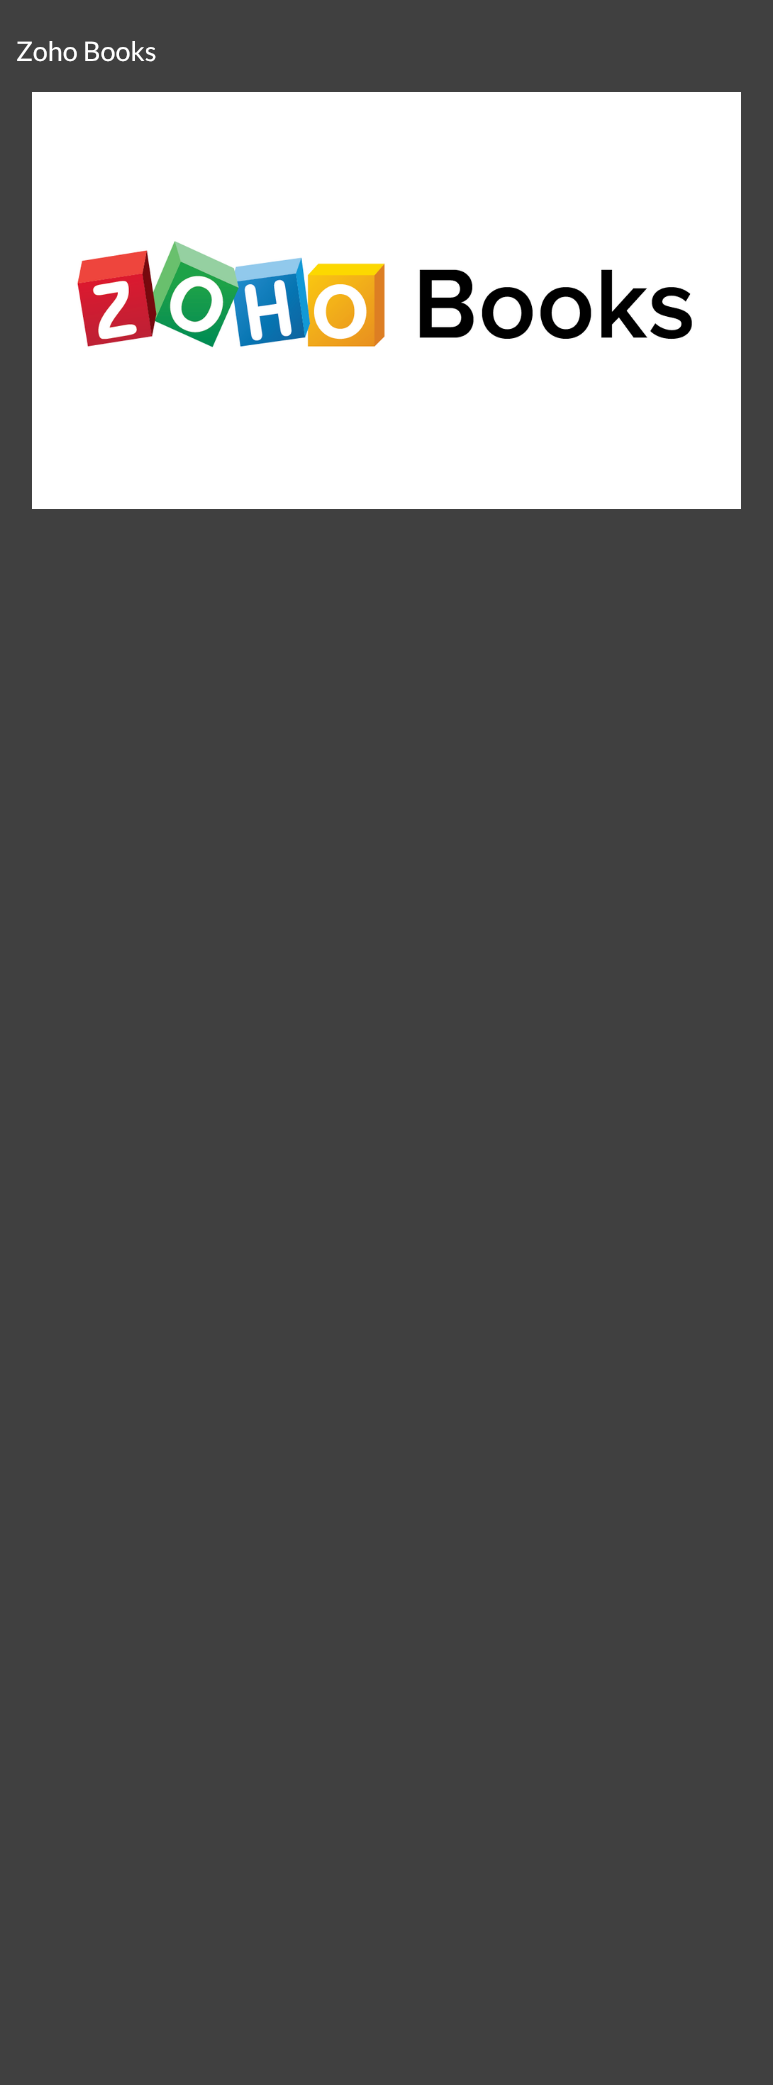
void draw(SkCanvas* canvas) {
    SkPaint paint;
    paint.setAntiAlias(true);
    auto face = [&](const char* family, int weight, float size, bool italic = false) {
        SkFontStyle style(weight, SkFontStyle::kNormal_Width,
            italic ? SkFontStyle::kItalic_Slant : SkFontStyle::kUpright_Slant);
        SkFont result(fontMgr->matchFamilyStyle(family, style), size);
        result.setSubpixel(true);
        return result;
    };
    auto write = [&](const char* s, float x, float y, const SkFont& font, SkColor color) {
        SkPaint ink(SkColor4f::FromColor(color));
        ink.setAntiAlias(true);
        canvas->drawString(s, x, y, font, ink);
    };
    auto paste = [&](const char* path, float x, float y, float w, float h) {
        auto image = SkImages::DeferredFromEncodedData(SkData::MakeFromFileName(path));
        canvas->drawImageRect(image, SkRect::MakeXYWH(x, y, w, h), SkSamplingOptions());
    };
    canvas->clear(SkColorSetRGB(64, 64, 64));
    auto kFont1 = face("Lato", 400, 27);
    write("Zoho Books", 16, 61, kFont1, SK_ColorWHITE);
    paste("pic1.png", 32, 92, 709, 417);
}
